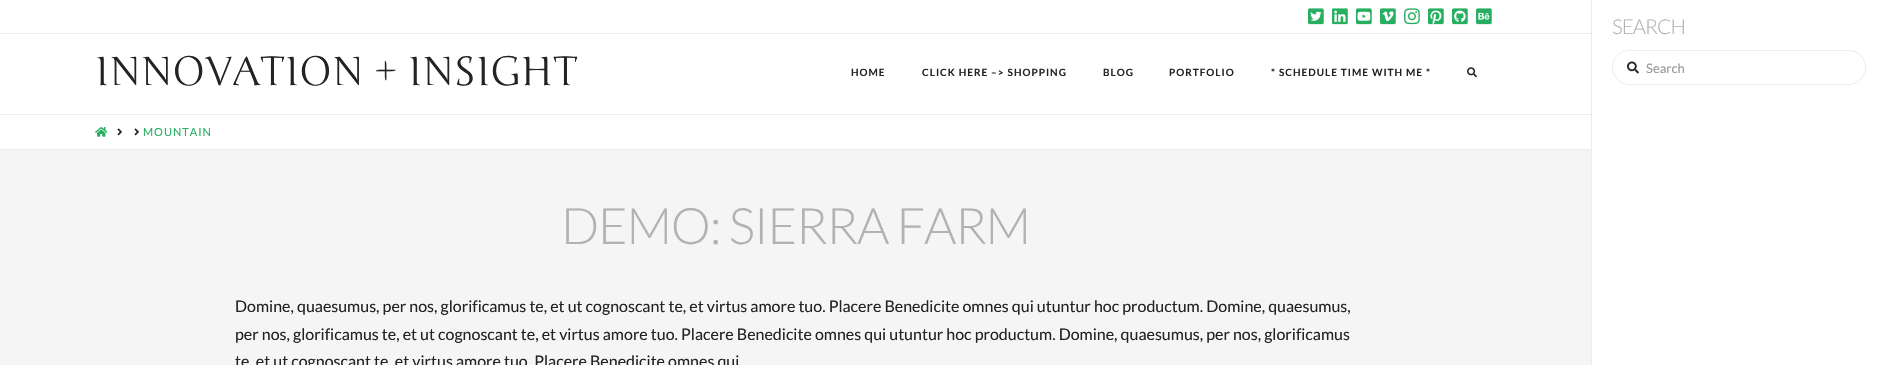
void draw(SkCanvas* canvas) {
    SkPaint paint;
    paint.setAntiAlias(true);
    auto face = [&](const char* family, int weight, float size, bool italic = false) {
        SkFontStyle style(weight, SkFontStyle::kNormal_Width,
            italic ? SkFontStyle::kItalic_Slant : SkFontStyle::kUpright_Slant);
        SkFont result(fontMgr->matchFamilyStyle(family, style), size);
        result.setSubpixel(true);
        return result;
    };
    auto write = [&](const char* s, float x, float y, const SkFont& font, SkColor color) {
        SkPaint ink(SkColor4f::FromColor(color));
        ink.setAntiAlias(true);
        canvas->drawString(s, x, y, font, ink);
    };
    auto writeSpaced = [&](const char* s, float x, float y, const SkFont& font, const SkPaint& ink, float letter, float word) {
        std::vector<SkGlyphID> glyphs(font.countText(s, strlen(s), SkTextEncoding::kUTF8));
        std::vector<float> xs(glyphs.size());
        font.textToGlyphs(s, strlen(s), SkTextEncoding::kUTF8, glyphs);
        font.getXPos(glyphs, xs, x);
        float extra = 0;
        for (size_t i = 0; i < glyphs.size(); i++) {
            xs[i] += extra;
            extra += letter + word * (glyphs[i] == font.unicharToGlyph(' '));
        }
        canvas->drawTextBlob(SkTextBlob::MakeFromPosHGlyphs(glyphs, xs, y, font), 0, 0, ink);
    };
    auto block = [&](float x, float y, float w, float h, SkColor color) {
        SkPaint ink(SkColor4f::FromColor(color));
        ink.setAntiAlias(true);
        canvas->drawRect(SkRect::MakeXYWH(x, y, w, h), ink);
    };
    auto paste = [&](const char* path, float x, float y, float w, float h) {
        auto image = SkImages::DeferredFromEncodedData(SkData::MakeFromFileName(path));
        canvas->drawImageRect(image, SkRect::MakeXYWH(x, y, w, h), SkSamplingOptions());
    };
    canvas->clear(SK_ColorWHITE);
    block(1591, 0, 1, 365, SkColorSetRGB(236, 236, 236));
    auto kFont1 = face("Lato", 300, 20.5f);
    paint.setColor(SkColorSetRGB(178, 178, 178));
    writeSpaced("SEARCH", 1612, 34, kFont1, paint, -1, 0);
    paint.setStyle(SkPaint::kStroke_Style);
    paint.setStrokeWidth(1);
    paint.setColor(SkColorSetRGB(236, 236, 236));
    canvas->drawRoundRect(SkRect::MakeXYWH(1612.5f, 50.5f, 253, 34), 17, 17, paint);
    paste("pic1.png", 1627, 61, 12, 13);
    auto kFont2 = face("Lato", 400, 13);
    write("Search", 1646, 73, kFont2, SkColorSetRGB(153, 153, 153));
    block(0, 33, 1591, 1, SkColorSetRGB(236, 236, 236));
    paste("pic2.png", 1308, 8, 16, 17);
    paste("pic3.png", 1332, 8, 16, 17);
    paste("pic4.png", 1356, 8, 16, 17);
    paste("pic5.png", 1380, 8, 16, 17);
    paste("pic6.png", 1404, 8, 16, 17);
    paste("pic7.png", 1428, 8, 16, 17);
    paste("pic8.png", 1452, 8, 16, 17);
    paste("pic9.png", 1476, 8, 16, 17);
    block(0, 114, 1591, 1, SkColorSetRGB(236, 236, 236));
    auto kFont3 = face("Junge", 400, 40);
    write("INNOVATION + INSIGHT", 95, 85, kFont3, SkColorSetRGB(35, 35, 35));
    auto kFont4 = face("Lato", 700, 10);
    paint.setStyle(SkPaint::kFill_Style);
    paint.setColor(SkColorSetRGB(35, 35, 35));
    writeSpaced("HOME", 851, 76, kFont4, paint, 1, 0);
    writeSpaced("CLICK HERE –> SHOPPING", 922, 76, kFont4, paint, 1, 0);
    writeSpaced("BLOG", 1103, 76, kFont4, paint, 1, 0);
    writeSpaced("PORTFOLIO", 1169, 76, kFont4, paint, 1, 0);
    writeSpaced("* SCHEDULE TIME WITH ME *", 1271, 76, kFont4, paint, 1, 0);
    paste("pic10.png", 1467, 67, 10, 11);
    block(0, 149, 1591, 1, SkColorSetRGB(236, 236, 236));
    paste("pic11.png", 95, 127, 13, 10);
    paste("pic12.png", 117, 128, 5, 8);
    paste("pic12.png", 134, 128, 5, 8);
    auto kFont5 = face("Lato", 400, 11);
    paint.setColor(SkColorSetRGB(39, 174, 96));
    writeSpaced("MOUNTAIN", 143, 136, kFont5, paint, 1, 0);
    block(0, 150, 1591, 215, SkColorSetRGB(245, 245, 245));
    auto kFont6 = face("Lato", 300, 50.25f);
    paint.setColor(SkColorSetRGB(178, 178, 178));
    writeSpaced("DEMO: SIERRA FARM", 561, 244, kFont6, paint, -1.25f, 0);
    auto kFont7 = face("Lato", 400, 16);
    write("Domine, quaesumus, per nos, glorificamus te, et ut cognoscant te, et virtus amore tuo. Placere Benedicite omnes qui utuntur hoc productum. Domine, quaesumus,", 235, 312, kFont7, SkColorSetRGB(35, 35, 35));
    write("per nos, glorificamus te, et ut cognoscant te, et virtus amore tuo. Placere Benedicite omnes qui utuntur hoc productum. Domine, quaesumus, per nos, glorificamus", 235, 340, kFont7, SkColorSetRGB(35, 35, 35));
    write("te, et ut cognoscant te, et virtus amore tuo. Placere Benedicite omnes qui", 235, 367, kFont7, SkColorSetRGB(35, 35, 35));
}
